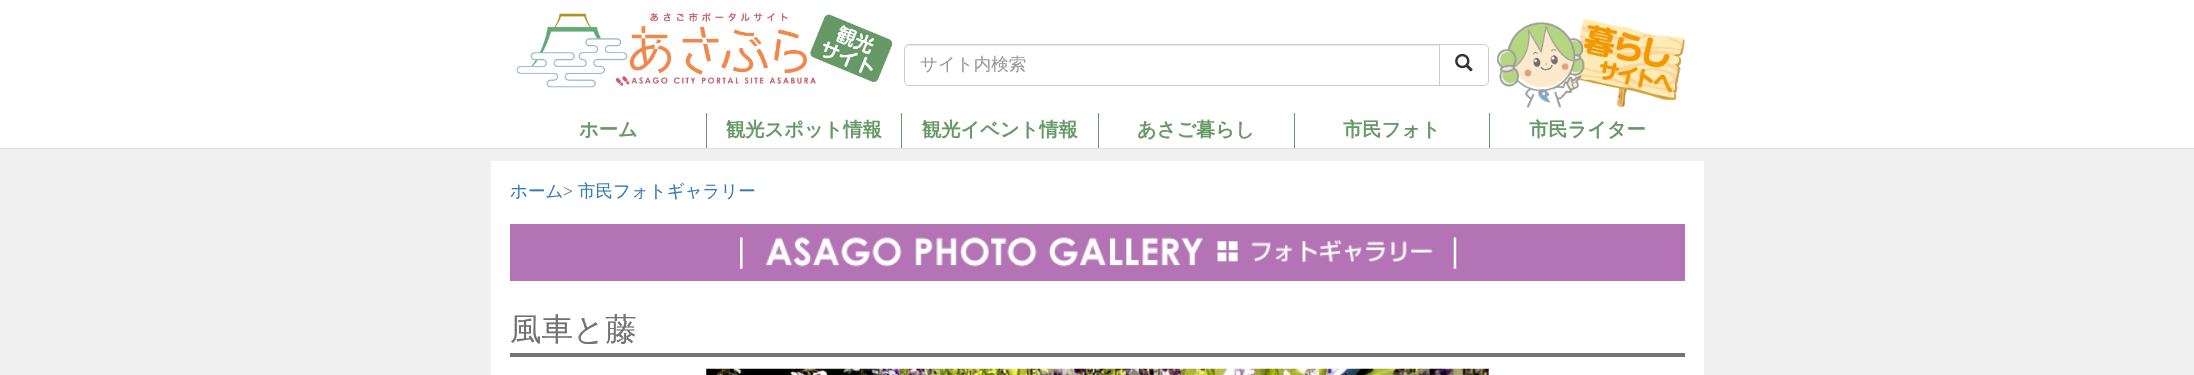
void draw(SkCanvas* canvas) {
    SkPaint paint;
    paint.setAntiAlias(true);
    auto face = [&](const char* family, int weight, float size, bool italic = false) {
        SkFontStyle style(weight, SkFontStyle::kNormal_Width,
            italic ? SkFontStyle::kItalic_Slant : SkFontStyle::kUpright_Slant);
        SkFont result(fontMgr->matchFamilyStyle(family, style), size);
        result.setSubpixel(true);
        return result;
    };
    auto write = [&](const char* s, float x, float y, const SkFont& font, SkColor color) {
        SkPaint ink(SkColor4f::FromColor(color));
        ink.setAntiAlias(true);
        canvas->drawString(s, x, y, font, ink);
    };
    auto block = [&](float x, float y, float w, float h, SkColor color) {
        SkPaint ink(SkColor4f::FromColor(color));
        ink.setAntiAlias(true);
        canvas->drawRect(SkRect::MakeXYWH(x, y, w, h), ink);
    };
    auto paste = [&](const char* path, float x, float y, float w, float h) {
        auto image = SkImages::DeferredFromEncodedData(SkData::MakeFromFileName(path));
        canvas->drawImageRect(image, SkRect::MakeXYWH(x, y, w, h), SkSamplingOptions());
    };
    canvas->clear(SkColorSetRGB(240, 240, 240));
    block(0, 0, 2194, 148, SK_ColorWHITE);
    block(0, 148, 2194, 1, SkColorSetRGB(221, 221, 221));
    paste("pic1.png", 516, 12, 377, 76);
    paint.setColor(SkColorSetRGB(236, 236, 236));
    canvas->drawPath(SkPathBuilder().moveTo(909, 46).lineTo(1439, 46).lineTo(1439, 45).lineTo(909, 45).cubicTo(906, 45, 905, 47, 905, 50).cubicTo(905, 48, 907, 46, 909, 46).close().detach(), paint);
    paint.setStyle(SkPaint::kStroke_Style);
    paint.setStrokeWidth(1);
    paint.setColor(SkColorSetRGB(204, 204, 204));
    canvas->drawPath(SkPathBuilder().moveTo(909, 44.5f).lineTo(1439.5f, 44.5f).lineTo(1439.5f, 85.5f).lineTo(909, 85.5f).cubicTo(906.5f, 85.5f, 904.5f, 83.5f, 904.5f, 81).lineTo(904.5f, 49).cubicTo(904.5f, 46.5f, 906.5f, 44.5f, 909, 44.5f).close().detach(), paint);
    auto kFont1 = face("WenQuanYi Zen Hei", 500, 17.5f);
    write("サイト内検索", 920, 70, kFont1, SkColorSetRGB(153, 153, 153));
    paint.setStyle(SkPaint::kFill_Style);
    paint.setColor(SK_ColorWHITE);
    canvas->drawPath(SkPathBuilder().moveTo(1439.5f, 44.5f).lineTo(1484, 44.5f).cubicTo(1486.5f, 44.5f, 1488.5f, 46.5f, 1488.5f, 49).lineTo(1488.5f, 81).cubicTo(1488.5f, 83.5f, 1486.5f, 85.5f, 1484, 85.5f).lineTo(1439.5f, 85.5f).close().detach(), paint);
    paint.setStyle(SkPaint::kStroke_Style);
    paint.setColor(SkColorSetRGB(204, 204, 204));
    canvas->drawPath(SkPathBuilder().moveTo(1439.5f, 44.5f).lineTo(1484, 44.5f).cubicTo(1486.5f, 44.5f, 1488.5f, 46.5f, 1488.5f, 49).lineTo(1488.5f, 81).cubicTo(1488.5f, 83.5f, 1486.5f, 85.5f, 1484, 85.5f).lineTo(1439.5f, 85.5f).close().detach(), paint);
    paste("pic2.png", 1455, 53, 18, 19);
    paste("pic3.png", 1496, 19, 189, 89);
    auto kFont2 = face("WenQuanYi Zen Hei", 700, 19.25f);
    write("ホーム", 579, 136, kFont2, SkColorSetRGB(102, 153, 102));
    block(706, 113, 1, 35, SkColorSetRGB(102, 153, 102));
    write("観光スポット情報", 726, 136, kFont2, SkColorSetRGB(102, 153, 102));
    block(901, 113, 1, 35, SkColorSetRGB(102, 153, 102));
    write("観光イベント情報", 922, 136, kFont2, SkColorSetRGB(102, 153, 102));
    block(1098, 113, 1, 35, SkColorSetRGB(102, 153, 102));
    write("あさご暮らし", 1137, 136, kFont2, SkColorSetRGB(102, 153, 102));
    block(1294, 113, 1, 35, SkColorSetRGB(102, 153, 102));
    write("市民フォト", 1343, 136, kFont2, SkColorSetRGB(102, 153, 102));
    block(1489, 113, 1, 35, SkColorSetRGB(102, 153, 102));
    write("市民ライター", 1529, 136, kFont2, SkColorSetRGB(102, 153, 102));
    block(491, 161, 1213, 214, SK_ColorWHITE);
    write("ホーム", 510, 197, kFont1, SkColorSetRGB(51, 122, 183));
    auto kFont3 = face("Liberation Serif", 400, 17.5f);
    write(">", 563, 197, kFont3, SkColorSetRGB(115, 115, 115));
    write("市民フォトギャラリー", 578, 197, kFont1, SkColorSetRGB(51, 122, 183));
    block(510, 224, 1175, 57, SkColorSetRGB(180, 115, 180));
    paste("pic4.png", 740, 237, 717, 32);
    block(510, 353, 1175, 4, SkColorSetRGB(115, 115, 115));
    auto kFont4 = face("WenQuanYi Zen Hei", 500, 31.5f);
    write("風車と藤", 510, 340, kFont4, SkColorSetRGB(115, 115, 115));
    paste("pic5.png", 706, 368, 783, 7);
}
